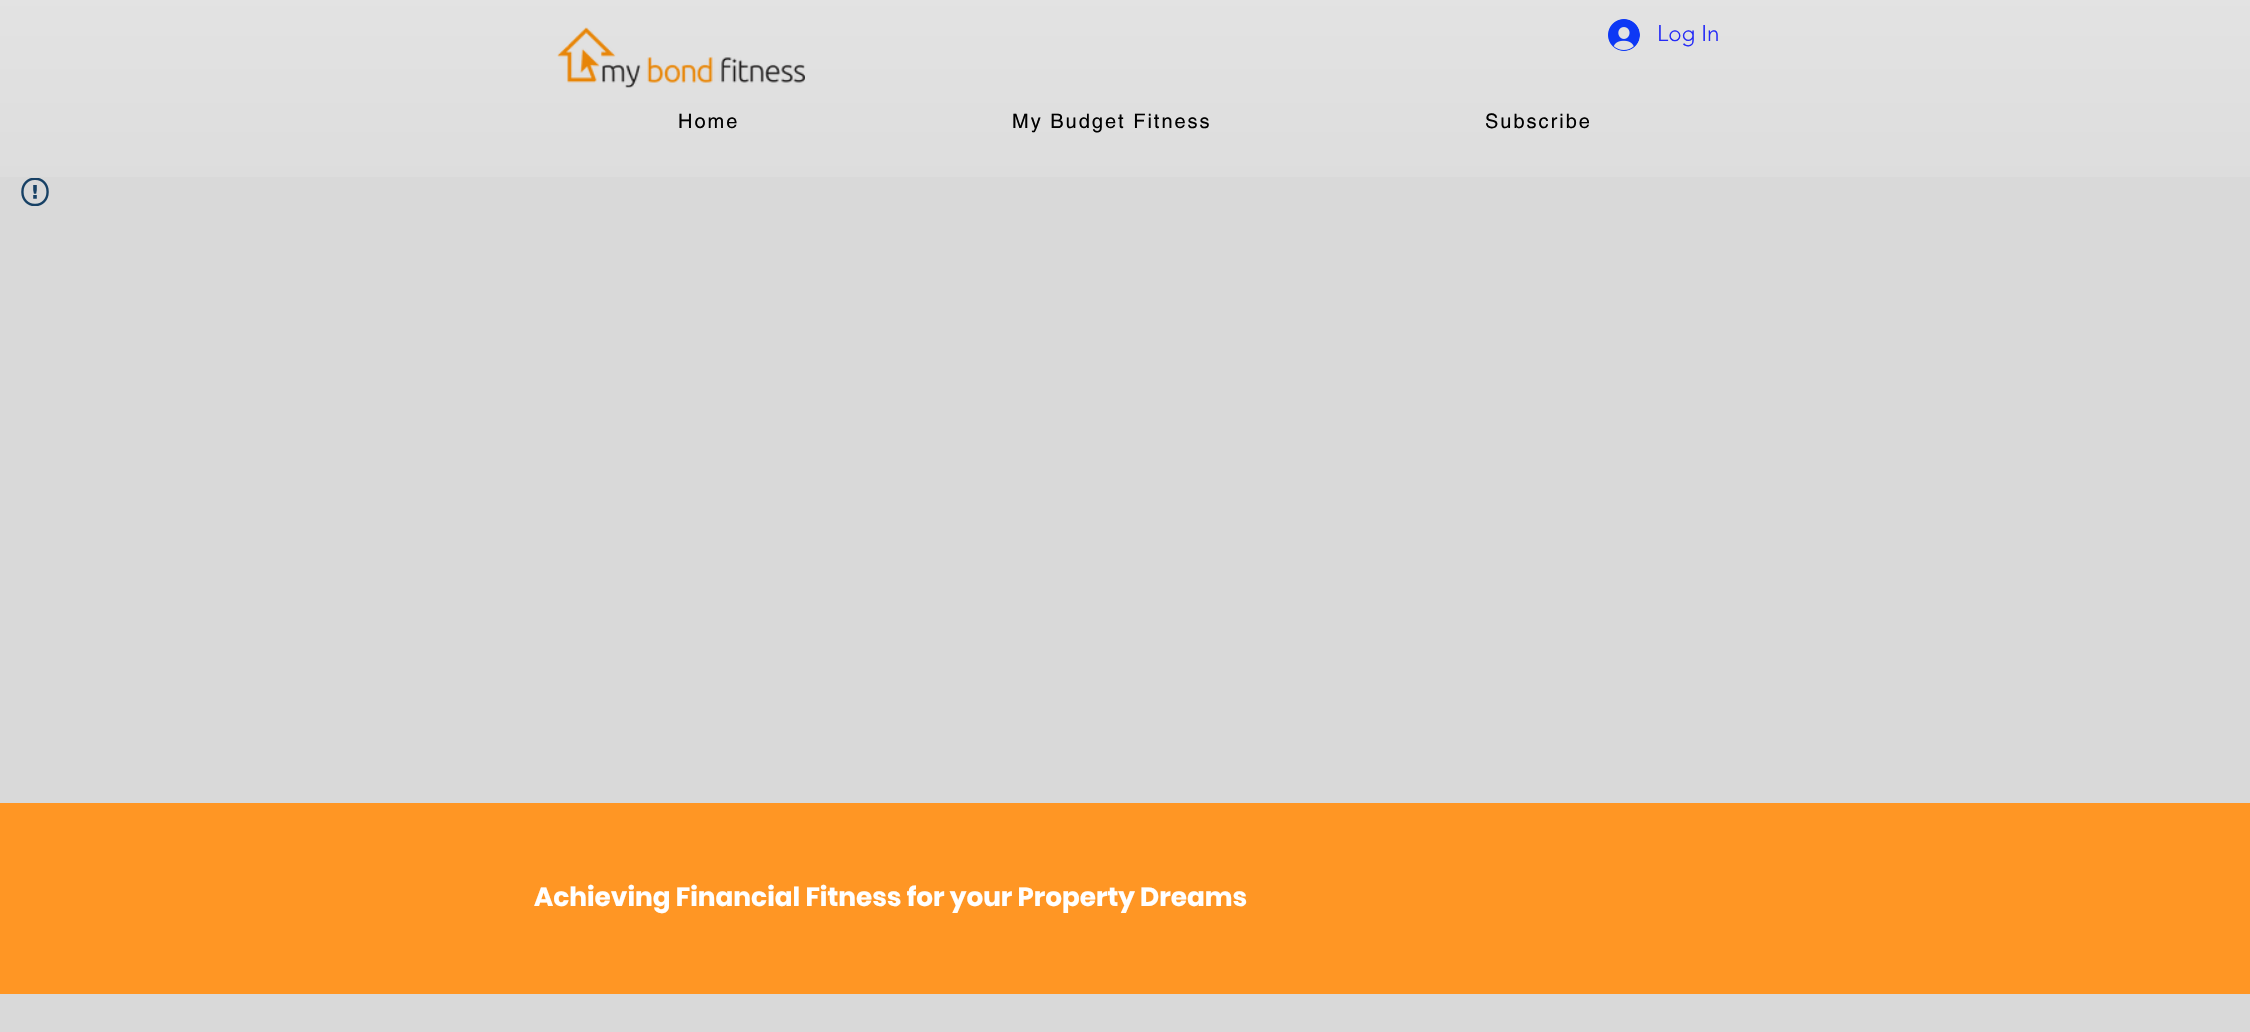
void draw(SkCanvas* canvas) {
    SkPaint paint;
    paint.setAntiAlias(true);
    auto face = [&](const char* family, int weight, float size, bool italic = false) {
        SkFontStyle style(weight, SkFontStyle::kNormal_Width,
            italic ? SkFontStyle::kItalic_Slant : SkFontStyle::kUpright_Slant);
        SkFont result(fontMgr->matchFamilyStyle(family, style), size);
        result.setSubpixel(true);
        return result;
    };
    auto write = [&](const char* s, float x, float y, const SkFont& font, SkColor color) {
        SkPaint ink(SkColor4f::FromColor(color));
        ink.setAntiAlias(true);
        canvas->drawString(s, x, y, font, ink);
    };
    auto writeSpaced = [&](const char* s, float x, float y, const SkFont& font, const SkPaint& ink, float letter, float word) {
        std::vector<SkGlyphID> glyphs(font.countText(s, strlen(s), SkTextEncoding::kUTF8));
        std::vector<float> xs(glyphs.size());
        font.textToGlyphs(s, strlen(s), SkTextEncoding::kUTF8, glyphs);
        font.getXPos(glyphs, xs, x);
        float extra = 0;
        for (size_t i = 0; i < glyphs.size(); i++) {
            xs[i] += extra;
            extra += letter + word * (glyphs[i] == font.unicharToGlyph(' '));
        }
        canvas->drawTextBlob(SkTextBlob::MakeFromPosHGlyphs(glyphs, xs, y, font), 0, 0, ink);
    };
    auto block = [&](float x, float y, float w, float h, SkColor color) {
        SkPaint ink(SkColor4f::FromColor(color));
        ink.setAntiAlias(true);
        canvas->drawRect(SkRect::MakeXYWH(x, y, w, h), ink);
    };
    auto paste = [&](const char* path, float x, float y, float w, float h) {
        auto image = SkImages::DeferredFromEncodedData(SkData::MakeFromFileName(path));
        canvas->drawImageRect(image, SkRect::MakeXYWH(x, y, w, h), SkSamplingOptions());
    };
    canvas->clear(SkColorSetRGB(217, 217, 217));
    paste("pic1.png", 0, 0, 2250, 177);
    paste("pic2.png", 557, 27, 248, 61);
    paste("pic3.png", 1608, 19, 32, 32);
    auto kFont1 = face("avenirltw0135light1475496", 300, 22.5f);
    write("Log In", 1657, 41, kFont1, SkColorSetRGB(36, 42, 247));
    auto kFont2 = face("helvetica", 400, 20);
    paint.setColor(SK_ColorBLACK);
    writeSpaced("Home", 678, 128, kFont2, paint, 2, 0);
    writeSpaced("My Budget Fitness", 1012, 128, kFont2, paint, 2, 0);
    writeSpaced("Subscribe", 1485, 128, kFont2, paint, 2, 0);
    paste("pic4.png", 21, 178, 28, 28);
    block(0, 803, 2250, 191, SkColorSetRGB(255, 150, 36));
    auto kFont3 = face("Poppins", 700, 26.25f);
    write("Achieving Financial Fitness for your Property Dreams", 534, 906, kFont3, SK_ColorWHITE);
}
